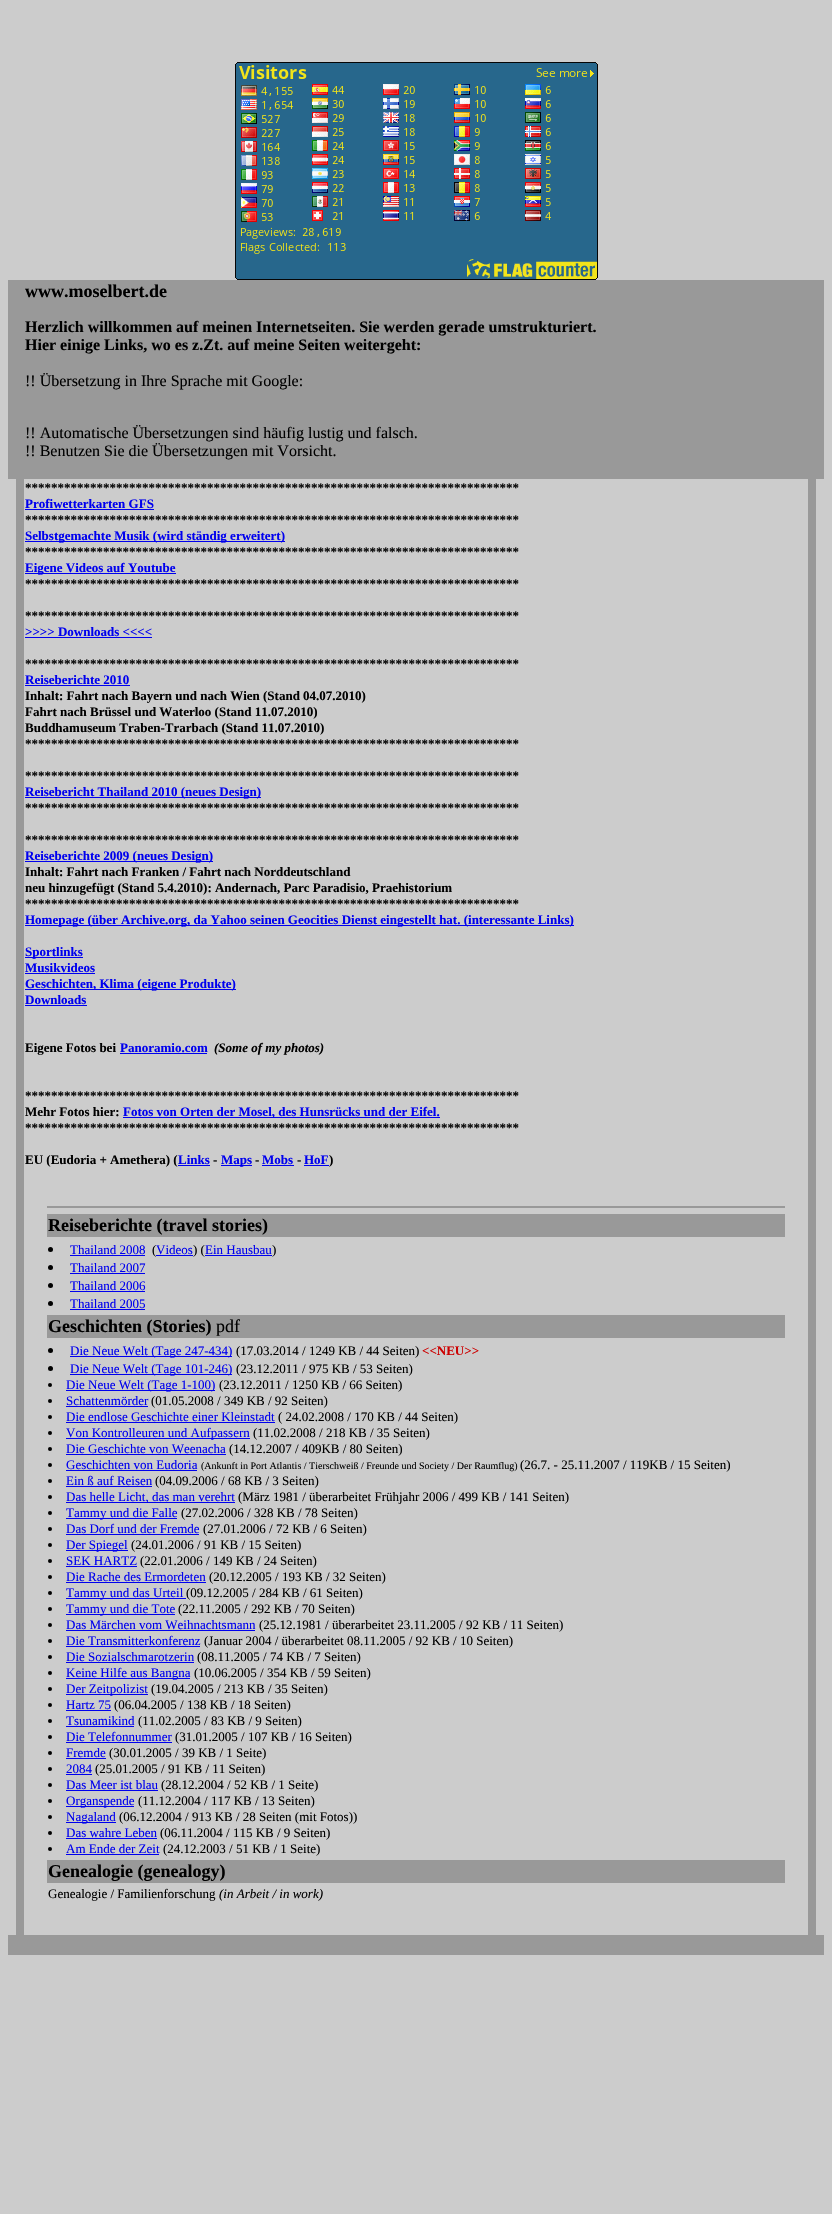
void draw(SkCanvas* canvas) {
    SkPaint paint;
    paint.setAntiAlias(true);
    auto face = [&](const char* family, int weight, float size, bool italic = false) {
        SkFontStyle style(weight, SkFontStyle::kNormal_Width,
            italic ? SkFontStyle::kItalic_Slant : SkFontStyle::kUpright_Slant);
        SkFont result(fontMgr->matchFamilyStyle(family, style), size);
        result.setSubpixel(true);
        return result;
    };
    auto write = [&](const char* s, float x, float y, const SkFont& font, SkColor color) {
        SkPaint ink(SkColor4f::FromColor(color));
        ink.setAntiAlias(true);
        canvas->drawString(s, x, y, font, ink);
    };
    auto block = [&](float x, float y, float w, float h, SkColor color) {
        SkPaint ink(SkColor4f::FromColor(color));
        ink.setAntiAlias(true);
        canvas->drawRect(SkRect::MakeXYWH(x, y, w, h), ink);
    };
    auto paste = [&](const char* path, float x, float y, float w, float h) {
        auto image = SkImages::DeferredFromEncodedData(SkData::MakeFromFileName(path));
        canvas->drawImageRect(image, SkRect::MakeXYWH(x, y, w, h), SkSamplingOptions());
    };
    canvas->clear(SkColorSetRGB(204, 204, 204));
    paste("pic1.png", 235, 62, 363, 218);
    block(8, 280, 816, 199, SkColorSetRGB(153, 153, 153));
    auto kFont1 = face("Liberation Serif", 700, 18);
    write("www.moselbert.de", 25, 297, kFont1, SK_ColorBLACK);
    auto kFont2 = face("Liberation Serif", 700, 16);
    write("Herzlich willkommen auf meinen Internetseiten. Sie werden gerade umstrukturiert.", 25, 332, kFont2, SK_ColorBLACK);
    write("Hier einige Links, wo es z.Zt. auf meine Seiten weitergeht:", 25, 350, kFont2, SK_ColorBLACK);
    auto kFont3 = face("Liberation Serif", 400, 16);
    write("!! Übersetzung in Ihre Sprache mit Google:", 25, 386, kFont3, SK_ColorBLACK);
    write("!! Automatische Übersetzungen sind häufig lustig und falsch.", 25, 438, kFont3, SK_ColorBLACK);
    write("!! Benutzen Sie die Übersetzungen mit Vorsicht.", 25, 456, kFont3, SK_ColorBLACK);
    block(16, 479, 8, 1456, SkColorSetRGB(153, 153, 153));
    auto kFont4 = face("Liberation Serif", 700, 13);
    write("****************************************************************************", 25, 492, kFont4, SK_ColorBLACK);
    write("Profiwetterkarten GFS", 25, 508, kFont4, SkColorSetRGB(0, 0, 238));
    block(25, 509, 129, 1, SkColorSetRGB(0, 0, 238));
    write("****************************************************************************", 25, 524, kFont4, SK_ColorBLACK);
    block(25, 541, 260, 1, SkColorSetRGB(0, 0, 238));
    write("Selbstgemachte Musik (wird ständig erweitert)", 25, 540, kFont4, SkColorSetRGB(0, 0, 238));
    write("****************************************************************************", 25, 556, kFont4, SK_ColorBLACK);
    block(25, 573, 151, 1, SkColorSetRGB(0, 0, 238));
    write("Eigene Videos auf Youtube", 25, 572, kFont4, SkColorSetRGB(0, 0, 238));
    write("****************************************************************************", 25, 588, kFont4, SK_ColorBLACK);
    write("****************************************************************************", 25, 620, kFont4, SK_ColorBLACK);
    write(">>>> Downloads <<<<", 25, 636, kFont4, SkColorSetRGB(0, 0, 238));
    block(25, 637, 127, 1, SkColorSetRGB(0, 0, 238));
    write("****************************************************************************", 25, 668, kFont4, SK_ColorBLACK);
    write("Reiseberichte 2010", 25, 684, kFont4, SkColorSetRGB(0, 0, 238));
    block(25, 685, 105, 1, SkColorSetRGB(0, 0, 238));
    write("Inhalt: Fahrt nach Bayern und nach Wien (Stand 04.07.2010)", 25, 700, kFont4, SK_ColorBLACK);
    write("Fahrt nach Brüssel und Waterloo (Stand 11.07.2010)", 25, 716, kFont4, SK_ColorBLACK);
    write("Buddhamuseum Traben-Trarbach (Stand 11.07.2010)", 25, 732, kFont4, SK_ColorBLACK);
    write("****************************************************************************", 25, 748, kFont4, SK_ColorBLACK);
    write("****************************************************************************", 25, 780, kFont4, SK_ColorBLACK);
    block(25, 797, 236, 1, SkColorSetRGB(0, 0, 238));
    write("Reisebericht Thailand 2010 (neues Design)", 25, 796, kFont4, SkColorSetRGB(0, 0, 238));
    write("****************************************************************************", 25, 812, kFont4, SK_ColorBLACK);
    write("****************************************************************************", 25, 844, kFont4, SK_ColorBLACK);
    block(25, 861, 188, 1, SkColorSetRGB(0, 0, 238));
    write("Reiseberichte 2009 (neues Design)", 25, 860, kFont4, SkColorSetRGB(0, 0, 238));
    write("Inhalt: Fahrt nach Franken / Fahrt nach Norddeutschland", 25, 876, kFont4, SK_ColorBLACK);
    write("neu hinzugefügt (Stand 5.4.2010): Andernach, Parc Paradisio, Praehistorium", 25, 892, kFont4, SK_ColorBLACK);
    write("****************************************************************************", 25, 908, kFont4, SK_ColorBLACK);
    block(25, 925, 549, 1, SkColorSetRGB(0, 0, 238));
    write("Homepage (über Archive.org, da Yahoo seinen Geocities Dienst eingestellt hat. (interessante Links)", 25, 924, kFont4, SkColorSetRGB(0, 0, 238));
    block(25, 957, 58, 1, SkColorSetRGB(0, 0, 238));
    write("Sportlinks", 25, 956, kFont4, SkColorSetRGB(0, 0, 238));
    write("Musikvideos", 25, 972, kFont4, SkColorSetRGB(0, 0, 238));
    block(25, 973, 70, 1, SkColorSetRGB(0, 0, 238));
    block(25, 989, 211, 1, SkColorSetRGB(0, 0, 238));
    write("Geschichten, Klima (eigene Produkte)", 25, 988, kFont4, SkColorSetRGB(0, 0, 238));
    write("Downloads", 25, 1004, kFont4, SkColorSetRGB(0, 0, 238));
    block(25, 1005, 62, 1, SkColorSetRGB(0, 0, 238));
    write("Eigene Fotos bei", 25, 1052, kFont4, SK_ColorBLACK);
    write("Panoramio.com", 120, 1052, kFont4, SkColorSetRGB(0, 0, 238));
    block(120, 1053, 87, 1, SkColorSetRGB(0, 0, 238));
    auto kFont5 = face("Liberation Serif", 700, 13, true);
    write("(Some of my photos)", 214, 1052, kFont5, SK_ColorBLACK);
    write("****************************************************************************", 25, 1100, kFont4, SK_ColorBLACK);
    write("Mehr Fotos hier:", 25, 1116, kFont4, SK_ColorBLACK);
    block(123, 1117, 317, 1, SkColorSetRGB(0, 0, 238));
    write("Fotos von Orten der Mosel, des Hunsrücks und der Eifel.", 123, 1116, kFont4, SkColorSetRGB(0, 0, 238));
    write("****************************************************************************", 25, 1132, kFont4, SK_ColorBLACK);
    write("EU (Eudoria + Amethera) (", 25, 1164, kFont4, SK_ColorBLACK);
    block(178, 1165, 32, 1, SkColorSetRGB(0, 0, 238));
    write("Links", 178, 1164, kFont4, SkColorSetRGB(0, 0, 238));
    write("-", 213, 1164, kFont4, SK_ColorBLACK);
    block(221, 1165, 31, 1, SkColorSetRGB(0, 0, 238));
    write("Maps", 221, 1164, kFont4, SkColorSetRGB(0, 0, 238));
    write("-", 255, 1164, kFont4, SK_ColorBLACK);
    write("Mobs", 262, 1164, kFont4, SkColorSetRGB(0, 0, 238));
    block(262, 1165, 32, 1, SkColorSetRGB(0, 0, 238));
    write("-", 297, 1164, kFont4, SK_ColorBLACK);
    write("HoF", 304, 1164, kFont4, SkColorSetRGB(0, 0, 238));
    write(")", 329, 1164, kFont4, SK_ColorBLACK);
    block(304, 1165, 25, 1, SkColorSetRGB(0, 0, 238));
    block(47, 1206, 738, 2, SkColorSetRGB(153, 153, 153));
    block(47, 1214, 738, 23, SkColorSetRGB(153, 153, 153));
    write("Reiseberichte (travel stories)", 48, 1231, kFont1, SK_ColorBLACK);
    paint.setColor(SK_ColorBLACK);
    canvas->drawCircle(50.5f, 1249.5f, 2.5f, paint);
    auto kFont6 = face("Liberation Serif", 400, 13);
    write("Thailand 2008", 70, 1254, kFont6, SkColorSetRGB(0, 0, 238));
    block(70, 1255, 75, 1, SkColorSetRGB(0, 0, 238));
    write("(", 152, 1254, kFont6, SK_ColorBLACK);
    block(156, 1255, 37, 1, SkColorSetRGB(0, 0, 238));
    write("Videos", 156, 1254, kFont6, SkColorSetRGB(0, 0, 238));
    write(") (", 193, 1254, kFont6, SK_ColorBLACK);
    block(205, 1255, 67, 1, SkColorSetRGB(0, 0, 238));
    write("Ein Hausbau", 205, 1254, kFont6, SkColorSetRGB(0, 0, 238));
    write(")", 272, 1254, kFont6, SK_ColorBLACK);
    canvas->drawCircle(50.5f, 1267.5f, 2.5f, paint);
    write("Thailand 2007", 70, 1272, kFont6, SkColorSetRGB(0, 0, 238));
    block(70, 1273, 75, 1, SkColorSetRGB(0, 0, 238));
    canvas->drawCircle(50.5f, 1285.5f, 2.5f, paint);
    write("Thailand 2006", 70, 1290, kFont6, SkColorSetRGB(0, 0, 238));
    block(70, 1291, 75, 1, SkColorSetRGB(0, 0, 238));
    canvas->drawCircle(50.5f, 1303.5f, 2.5f, paint);
    write("Thailand 2005", 70, 1308, kFont6, SkColorSetRGB(0, 0, 238));
    block(70, 1309, 75, 1, SkColorSetRGB(0, 0, 238));
    block(47, 1315, 738, 23, SkColorSetRGB(153, 153, 153));
    write("Geschichten (Stories)", 48, 1332, kFont1, SK_ColorBLACK);
    auto kFont7 = face("Liberation Serif", 400, 18);
    write("pdf", 216, 1332, kFont7, SK_ColorBLACK);
    canvas->drawCircle(50.5f, 1350.5f, 2.5f, paint);
    block(70, 1356, 162, 1, SkColorSetRGB(0, 0, 238));
    write("Die Neue Welt (Tage 247-434)", 70, 1355, kFont6, SkColorSetRGB(0, 0, 238));
    write("(17.03.2014 / 1249 KB / 44 Seiten)", 236, 1355, kFont6, SK_ColorBLACK);
    write("<<NEU>>", 422, 1355, kFont4, SkColorSetRGB(204, 0, 0));
    canvas->drawCircle(50.5f, 1368.5f, 2.5f, paint);
    block(70, 1374, 162, 1, SkColorSetRGB(0, 0, 238));
    write("Die Neue Welt (Tage 101-246)", 70, 1373, kFont6, SkColorSetRGB(0, 0, 238));
    write("(23.12.2011 / 975 KB / 53 Seiten)", 236, 1373, kFont6, SK_ColorBLACK);
    canvas->drawCircle(50, 1385, 2, paint);
    block(66, 1390, 149, 1, SkColorSetRGB(0, 0, 238));
    write("Die Neue Welt (Tage 1-100)", 66, 1389, kFont6, SkColorSetRGB(0, 0, 238));
    write("(23.12.2011 / 1250 KB / 66 Seiten)", 219, 1389, kFont6, SK_ColorBLACK);
    canvas->drawCircle(50, 1401, 2, paint);
    write("Schattenmörder", 66, 1405, kFont6, SkColorSetRGB(0, 0, 238));
    block(66, 1406, 82, 1, SkColorSetRGB(0, 0, 238));
    write("(01.05.2008 / 349 KB / 92 Seiten)", 151, 1405, kFont6, SK_ColorBLACK);
    canvas->drawCircle(50, 1417, 2, paint);
    write("Die endlose Geschichte einer Kleinstadt", 66, 1421, kFont6, SkColorSetRGB(0, 0, 238));
    block(66, 1422, 209, 1, SkColorSetRGB(0, 0, 238));
    write("( 24.02.2008 / 170 KB / 44 Seiten)", 278, 1421, kFont6, SK_ColorBLACK);
    canvas->drawCircle(50, 1433, 2, paint);
    block(66, 1438, 184, 1, SkColorSetRGB(0, 0, 238));
    write("Von Kontrolleuren und Aufpassern", 66, 1437, kFont6, SkColorSetRGB(0, 0, 238));
    write("(11.02.2008 / 218 KB / 35 Seiten)", 253, 1437, kFont6, SK_ColorBLACK);
    canvas->drawCircle(50, 1449, 2, paint);
    write("Die Geschichte von Weenacha", 66, 1453, kFont6, SkColorSetRGB(0, 0, 238));
    block(66, 1454, 160, 1, SkColorSetRGB(0, 0, 238));
    write("(14.12.2007 / 409KB / 80 Seiten)", 229, 1453, kFont6, SK_ColorBLACK);
    canvas->drawCircle(50, 1465, 2, paint);
    write("Geschichten von Eudoria", 66, 1469, kFont6, SkColorSetRGB(0, 0, 238));
    block(66, 1470, 131, 1, SkColorSetRGB(0, 0, 238));
    auto kFont8 = face("Liberation Serif", 400, 10);
    write("(Ankunft in Port Atlantis / Tierschweiß / Freunde und Society / Der Raumflug)", 201, 1469, kFont8, SK_ColorBLACK);
    write("(26.7. - 25.11.2007 / 119KB / 15 Seiten)", 520, 1469, kFont6, SK_ColorBLACK);
    canvas->drawCircle(50, 1481, 2, paint);
    write("Ein ß auf Reisen", 66, 1485, kFont6, SkColorSetRGB(0, 0, 238));
    block(66, 1486, 86, 1, SkColorSetRGB(0, 0, 238));
    write("(04.09.2006 / 68 KB / 3 Seiten)", 155, 1485, kFont6, SK_ColorBLACK);
    canvas->drawCircle(50, 1497, 2, paint);
    block(66, 1502, 169, 1, SkColorSetRGB(0, 0, 238));
    write("Das helle Licht, das man verehrt", 66, 1501, kFont6, SkColorSetRGB(0, 0, 238));
    write("(März 1981 / überarbeitet Frühjahr 2006 / 499 KB / 141 Seiten)", 238, 1501, kFont6, SK_ColorBLACK);
    canvas->drawCircle(50, 1513, 2, paint);
    block(66, 1518, 111, 1, SkColorSetRGB(0, 0, 238));
    write("Tammy und die Falle", 66, 1517, kFont6, SkColorSetRGB(0, 0, 238));
    write("(27.02.2006 / 328 KB / 78 Seiten)", 181, 1517, kFont6, SK_ColorBLACK);
    canvas->drawCircle(50, 1529, 2, paint);
    write("Das Dorf und der Fremde", 66, 1533, kFont6, SkColorSetRGB(0, 0, 238));
    block(66, 1534, 133, 1, SkColorSetRGB(0, 0, 238));
    write("(27.01.2006 / 72 KB / 6 Seiten)", 203, 1533, kFont6, SK_ColorBLACK);
    canvas->drawCircle(50, 1545, 2, paint);
    block(66, 1550, 62, 1, SkColorSetRGB(0, 0, 238));
    write("Der Spiegel", 66, 1549, kFont6, SkColorSetRGB(0, 0, 238));
    write("(24.01.2006 / 91 KB / 15 Seiten)", 131, 1549, kFont6, SK_ColorBLACK);
    canvas->drawCircle(50, 1561, 2, paint);
    write("SEK HARTZ", 66, 1565, kFont6, SkColorSetRGB(0, 0, 238));
    block(66, 1566, 71, 1, SkColorSetRGB(0, 0, 238));
    write("(22.01.2006 / 149 KB / 24 Seiten)", 140, 1565, kFont6, SK_ColorBLACK);
    canvas->drawCircle(50, 1577, 2, paint);
    write("Die Rache des Ermordeten", 66, 1581, kFont6, SkColorSetRGB(0, 0, 238));
    block(66, 1582, 140, 1, SkColorSetRGB(0, 0, 238));
    write("(20.12.2005 / 193 KB / 32 Seiten)", 209, 1581, kFont6, SK_ColorBLACK);
    canvas->drawCircle(50, 1593, 2, paint);
    block(66, 1598, 120, 1, SkColorSetRGB(0, 0, 238));
    write("Tammy und das Urteil", 66, 1597, kFont6, SkColorSetRGB(0, 0, 238));
    write("(09.12.2005 / 284 KB / 61 Seiten)", 186, 1597, kFont6, SK_ColorBLACK);
    canvas->drawCircle(50, 1609, 2, paint);
    block(66, 1614, 109, 1, SkColorSetRGB(0, 0, 238));
    write("Tammy und die Tote", 66, 1613, kFont6, SkColorSetRGB(0, 0, 238));
    write("(22.11.2005 / 292 KB / 70 Seiten)", 178, 1613, kFont6, SK_ColorBLACK);
    canvas->drawCircle(50, 1625, 2, paint);
    write("Das Märchen vom Weihnachtsmann", 66, 1629, kFont6, SkColorSetRGB(0, 0, 238));
    block(66, 1630, 189, 1, SkColorSetRGB(0, 0, 238));
    write("(25.12.1981 / überarbeitet 23.11.2005 / 92 KB / 11 Seiten)", 259, 1629, kFont6, SK_ColorBLACK);
    canvas->drawCircle(50, 1641, 2, paint);
    write("Die Transmitterkonferenz", 66, 1645, kFont6, SkColorSetRGB(0, 0, 238));
    block(66, 1646, 134, 1, SkColorSetRGB(0, 0, 238));
    write("(Januar 2004 / überarbeitet 08.11.2005 / 92 KB / 10 Seiten)", 204, 1645, kFont6, SK_ColorBLACK);
    canvas->drawCircle(50, 1657, 2, paint);
    write("Die Sozialschmarotzerin", 66, 1661, kFont6, SkColorSetRGB(0, 0, 238));
    block(66, 1662, 128, 1, SkColorSetRGB(0, 0, 238));
    write("(08.11.2005 / 74 KB / 7 Seiten)", 197, 1661, kFont6, SK_ColorBLACK);
    canvas->drawCircle(50, 1673, 2, paint);
    block(66, 1678, 124, 1, SkColorSetRGB(0, 0, 238));
    write("Keine Hilfe aus Bangna", 66, 1677, kFont6, SkColorSetRGB(0, 0, 238));
    write("(10.06.2005 / 354 KB / 59 Seiten)", 194, 1677, kFont6, SK_ColorBLACK);
    canvas->drawCircle(50, 1689, 2, paint);
    block(66, 1694, 82, 1, SkColorSetRGB(0, 0, 238));
    write("Der Zeitpolizist", 66, 1693, kFont6, SkColorSetRGB(0, 0, 238));
    write("(19.04.2005 / 213 KB / 35 Seiten)", 151, 1693, kFont6, SK_ColorBLACK);
    canvas->drawCircle(50, 1705, 2, paint);
    write("Hartz 75", 66, 1709, kFont6, SkColorSetRGB(0, 0, 238));
    block(66, 1710, 45, 1, SkColorSetRGB(0, 0, 238));
    write("(06.04.2005 / 138 KB / 18 Seiten)", 114, 1709, kFont6, SK_ColorBLACK);
    canvas->drawCircle(50, 1721, 2, paint);
    write("Tsunamikind", 66, 1725, kFont6, SkColorSetRGB(0, 0, 238));
    block(66, 1726, 68, 1, SkColorSetRGB(0, 0, 238));
    write("(11.02.2005 / 83 KB / 9 Seiten)", 138, 1725, kFont6, SK_ColorBLACK);
    canvas->drawCircle(50, 1737, 2, paint);
    write("Die Telefonnummer", 66, 1741, kFont6, SkColorSetRGB(0, 0, 238));
    block(66, 1742, 106, 1, SkColorSetRGB(0, 0, 238));
    write("(31.01.2005 / 107 KB / 16 Seiten)", 175, 1741, kFont6, SK_ColorBLACK);
    canvas->drawCircle(50, 1753, 2, paint);
    write("Fremde", 66, 1757, kFont6, SkColorSetRGB(0, 0, 238));
    block(66, 1758, 40, 1, SkColorSetRGB(0, 0, 238));
    write("(30.01.2005 / 39 KB / 1 Seite)", 109, 1757, kFont6, SK_ColorBLACK);
    canvas->drawCircle(50, 1769, 2, paint);
    write("2084", 66, 1773, kFont6, SkColorSetRGB(0, 0, 238));
    block(66, 1774, 26, 1, SkColorSetRGB(0, 0, 238));
    write("(25.01.2005 / 91 KB / 11 Seiten)", 95, 1773, kFont6, SK_ColorBLACK);
    canvas->drawCircle(50, 1785, 2, paint);
    write("Das Meer ist blau", 66, 1789, kFont6, SkColorSetRGB(0, 0, 238));
    block(66, 1790, 92, 1, SkColorSetRGB(0, 0, 238));
    write("(28.12.2004 / 52 KB / 1 Seite)", 161, 1789, kFont6, SK_ColorBLACK);
    canvas->drawCircle(50, 1801, 2, paint);
    block(66, 1806, 68, 1, SkColorSetRGB(0, 0, 238));
    write("Organspende", 66, 1805, kFont6, SkColorSetRGB(0, 0, 238));
    write("(11.12.2004 / 117 KB / 13 Seiten)", 138, 1805, kFont6, SK_ColorBLACK);
    canvas->drawCircle(50, 1817, 2, paint);
    block(66, 1822, 50, 1, SkColorSetRGB(0, 0, 238));
    write("Nagaland", 66, 1821, kFont6, SkColorSetRGB(0, 0, 238));
    write("(06.12.2004 / 913 KB / 28 Seiten (mit Fotos))", 119, 1821, kFont6, SK_ColorBLACK);
    canvas->drawCircle(50, 1833, 2, paint);
    write("Das wahre Leben", 66, 1837, kFont6, SkColorSetRGB(0, 0, 238));
    block(66, 1838, 91, 1, SkColorSetRGB(0, 0, 238));
    write("(06.11.2004 / 115 KB / 9 Seiten)", 160, 1837, kFont6, SK_ColorBLACK);
    canvas->drawCircle(50, 1849, 2, paint);
    write("Am Ende der Zeit", 66, 1853, kFont6, SkColorSetRGB(0, 0, 238));
    block(66, 1854, 93, 1, SkColorSetRGB(0, 0, 238));
    write("(24.12.2003 / 51 KB / 1 Seite)", 163, 1853, kFont6, SK_ColorBLACK);
    block(47, 1860, 738, 23, SkColorSetRGB(153, 153, 153));
    write("Genealogie (genealogy)", 48, 1877, kFont1, SK_ColorBLACK);
    write("Genealogie / Familienforschung", 48, 1898, kFont6, SK_ColorBLACK);
    auto kFont9 = face("Liberation Serif", 400, 13, true);
    write("(in Arbeit / in work)", 219, 1898, kFont9, SK_ColorBLACK);
    block(808, 479, 8, 1456, SkColorSetRGB(153, 153, 153));
    block(8, 1935, 816, 20, SkColorSetRGB(153, 153, 153));
}
